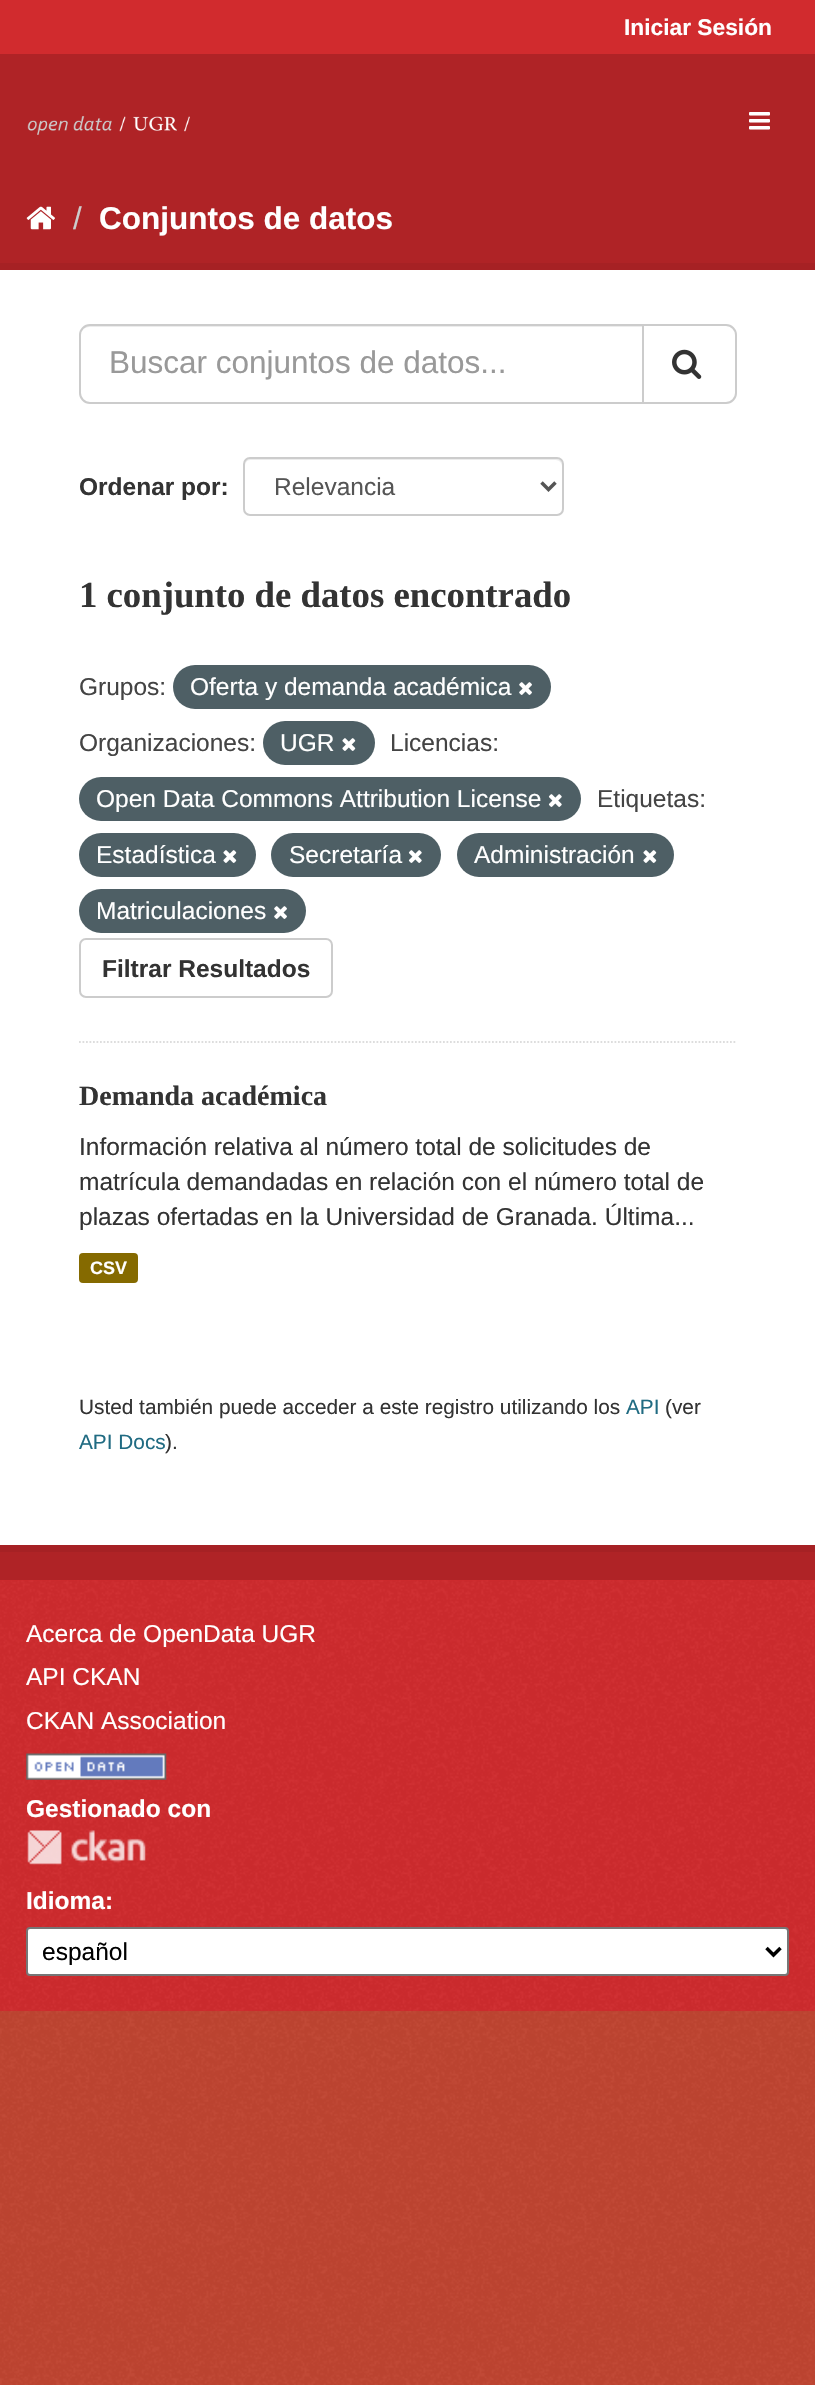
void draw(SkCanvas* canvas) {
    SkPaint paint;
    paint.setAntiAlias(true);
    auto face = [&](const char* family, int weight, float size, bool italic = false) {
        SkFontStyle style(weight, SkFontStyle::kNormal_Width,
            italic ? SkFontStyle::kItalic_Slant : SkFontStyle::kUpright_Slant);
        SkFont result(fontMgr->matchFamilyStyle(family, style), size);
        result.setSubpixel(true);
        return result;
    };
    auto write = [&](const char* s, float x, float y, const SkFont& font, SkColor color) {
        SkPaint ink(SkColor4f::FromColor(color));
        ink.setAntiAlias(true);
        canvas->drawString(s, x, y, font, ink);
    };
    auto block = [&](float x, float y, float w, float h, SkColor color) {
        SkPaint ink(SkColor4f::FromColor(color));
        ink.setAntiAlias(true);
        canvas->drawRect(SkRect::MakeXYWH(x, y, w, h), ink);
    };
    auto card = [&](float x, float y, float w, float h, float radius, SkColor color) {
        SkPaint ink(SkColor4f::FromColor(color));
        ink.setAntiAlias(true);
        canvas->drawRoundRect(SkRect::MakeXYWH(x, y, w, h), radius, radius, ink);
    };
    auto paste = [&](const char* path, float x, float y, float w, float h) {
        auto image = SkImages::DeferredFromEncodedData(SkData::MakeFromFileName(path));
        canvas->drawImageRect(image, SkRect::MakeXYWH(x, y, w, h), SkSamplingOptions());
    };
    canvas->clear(SkColorSetRGB(193, 69, 49));
    paste("pic1.png", 0, 2011, 815, 374);
    block(0, 0, 815, 54, SkColorSetRGB(209, 43, 46));
    auto kFont1 = face("Liberation Sans", 700, 22.75f);
    write("Iniciar Sesión", 624, 35, kFont1, SK_ColorWHITE);
    block(0, 54, 815, 1526, SkColorSetRGB(175, 35, 38));
    paste("pic2.png", 27, 116, 163, 19);
    paste("pic3.png", 749, 112, 21, 18);
    paste("pic4.png", 26, 206, 29, 24);
    auto kFont2 = face("Liberation Sans", 400, 31.5f);
    write("/", 73, 229, kFont2, SkColorSetRGB(204, 204, 204));
    auto kFont3 = face("Liberation Sans", 700, 31.5f);
    write("Conjuntos de datos", 99, 229, kFont3, SK_ColorWHITE);
    paint.setStyle(SkPaint::kStroke_Style);
    paint.setStrokeWidth(7);
    paint.setColor(SkColorSetRGB(166, 33, 36));
    canvas->drawRect(SkRect::MakeXYWH(-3.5f, 266.5f, 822, 1282), paint);
    block(0, 270, 815, 1275, SK_ColorWHITE);
    paint.setStrokeWidth(1.8f);
    paint.setColor(SkColorSetRGB(221, 221, 221));
    paint.setPathEffect(SkDashPathEffect::Make({{1.75f, 1.75f}}, 0));
    canvas->drawPath(SkPathBuilder().moveTo(79, 1042).lineTo(737, 1042).detach(), paint);
    paint.setPathEffect(nullptr);
    paint.setStyle(SkPaint::kFill_Style);
    paint.setColor(SkColorSetRGB(236, 236, 236));
    canvas->drawPath(SkPathBuilder().moveTo(89, 327).lineTo(642, 327).lineTo(642, 326).lineTo(90, 326).cubicTo(87, 326, 85, 327, 83, 329).cubicTo(85, 328, 87, 327, 89, 327).close().detach(), paint);
    paint.setStyle(SkPaint::kStroke_Style);
    paint.setStrokeWidth(2);
    paint.setColor(SkColorSetRGB(204, 204, 204));
    canvas->drawPath(SkPathBuilder().moveTo(90, 325).lineTo(643, 325).lineTo(643, 403).lineTo(90, 403).cubicTo(84.5f, 403, 80, 398.5f, 80, 393).lineTo(80, 335).cubicTo(80, 329.5f, 84.5f, 325, 90, 325).close().detach(), paint);
    write("Buscar conjuntos de datos...", 109, 373, kFont2, SkColorSetRGB(153, 153, 153));
    paint.setStyle(SkPaint::kFill_Style);
    paint.setColor(SK_ColorWHITE);
    canvas->drawPath(SkPathBuilder().moveTo(643, 325).lineTo(726, 325).cubicTo(731.5f, 325, 736, 329.5f, 736, 335).lineTo(736, 393).cubicTo(736, 398.5f, 731.5f, 403, 726, 403).lineTo(643, 403).close().detach(), paint);
    paint.setStyle(SkPaint::kStroke_Style);
    paint.setColor(SkColorSetRGB(204, 204, 204));
    canvas->drawPath(SkPathBuilder().moveTo(643, 325).lineTo(726, 325).cubicTo(731.5f, 325, 736, 329.5f, 736, 335).lineTo(736, 393).cubicTo(736, 398.5f, 731.5f, 403, 726, 403).lineTo(643, 403).close().detach(), paint);
    paste("pic5.png", 672, 349, 30, 30);
    auto kFont4 = face("Liberation Sans", 700, 24.5f);
    write("Ordenar por:", 79, 495, kFont4, SkColorSetRGB(51, 51, 51));
    paint.setStyle(SkPaint::kFill_Style);
    paint.setColor(SkColorSetRGB(236, 236, 236));
    canvas->drawPath(SkPathBuilder().moveTo(250, 460).lineTo(556, 460).cubicTo(559, 460, 562, 463, 562, 466).lineTo(562, 464).cubicTo(562, 461, 560, 459, 557, 459).lineTo(250, 459).cubicTo(247, 459, 245, 461, 245, 464).lineTo(245, 466).cubicTo(245, 463, 247, 460, 250, 460).close().detach(), paint);
    paint.setStyle(SkPaint::kStroke_Style);
    paint.setColor(SkColorSetRGB(204, 204, 204));
    canvas->drawRoundRect(SkRect::MakeXYWH(244, 458, 319, 57), 6, 6, paint);
    paint.setStrokeWidth(3.5f);
    paint.setColor(SkColorSetRGB(85, 85, 85));
    canvas->drawPath(SkPathBuilder().moveTo(541.5f, 482.5f).lineTo(548.5f, 489.5f).lineTo(555.5f, 482.5f).detach(), paint);
    auto kFont5 = face("Liberation Sans", 400, 24.5f);
    write("Relevancia", 274, 495, kFont5, SkColorSetRGB(85, 85, 85));
    auto kFont6 = face("Liberation Serif", 700, 36.75f);
    write("1 conjunto de datos encontrado", 79, 607, kFont6, SkColorSetRGB(51, 51, 51));
    write("Grupos:", 79, 695, kFont5, SkColorSetRGB(68, 68, 68));
    card(173, 665, 378, 44, 22, SkColorSetRGB(78, 95, 101));
    write("Oferta y demanda académica", 190, 695, kFont5, SK_ColorWHITE);
    paste("pic6.png", 519, 682, 13, 13);
    write("Organizaciones:", 79, 751, kFont5, SkColorSetRGB(68, 68, 68));
    card(263, 721, 112, 44, 22, SkColorSetRGB(78, 95, 101));
    write("UGR", 280, 751, kFont5, SK_ColorWHITE);
    paste("pic7.png", 342, 738, 14, 13);
    write("Licencias:", 390, 751, kFont5, SkColorSetRGB(68, 68, 68));
    card(79, 777, 502, 44, 22, SkColorSetRGB(78, 95, 101));
    write("Open Data Commons Attribution License", 96, 807, kFont5, SK_ColorWHITE);
    paste("pic8.png", 548, 794, 14, 13);
    write("Etiquetas:", 597, 807, kFont5, SkColorSetRGB(68, 68, 68));
    card(79, 833, 177, 44, 22, SkColorSetRGB(78, 95, 101));
    write("Estadística", 96, 863, kFont5, SK_ColorWHITE);
    paste("pic9.png", 223, 850, 14, 13);
    card(271, 833, 170, 44, 22, SkColorSetRGB(78, 95, 101));
    write("Secretaría", 289, 863, kFont5, SK_ColorWHITE);
    paste("pic8.png", 408, 850, 14, 13);
    card(457, 833, 217, 44, 22, SkColorSetRGB(78, 95, 101));
    write("Administración", 474, 863, kFont5, SK_ColorWHITE);
    paste("pic7.png", 643, 850, 14, 13);
    card(79, 889, 227, 44, 22, SkColorSetRGB(78, 95, 101));
    write("Matriculaciones", 96, 919, kFont5, SK_ColorWHITE);
    paste("pic10.png", 274, 906, 13, 13);
    paint.setStrokeWidth(2);
    paint.setColor(SkColorSetRGB(204, 204, 204));
    canvas->drawRoundRect(SkRect::MakeXYWH(80, 939, 252, 58), 6, 6, paint);
    write("Filtrar Resultados", 102, 977, kFont4, SkColorSetRGB(51, 51, 51));
    auto kFont7 = face("Liberation Serif", 700, 28);
    write("Demanda académica", 79, 1105, kFont7, SkColorSetRGB(51, 51, 51));
    write("Información relativa al número total de solicitudes de", 79, 1155, kFont5, SkColorSetRGB(51, 51, 51));
    write("matrícula demandadas en relación con el número total de", 79, 1190, kFont5, SkColorSetRGB(51, 51, 51));
    write("plazas ofertadas en la Universidad de Granada. Última...", 79, 1225, kFont5, SkColorSetRGB(51, 51, 51));
    card(79, 1253, 59, 30, 4, SkColorSetRGB(133, 106, 0));
    auto kFont8 = face("Liberation Sans", 700, 18);
    write("CSV", 90, 1274, kFont8, SK_ColorWHITE);
    auto kFont9 = face("Liberation Sans", 400, 20.8f);
    write("Usted también puede acceder a este registro utilizando los", 79, 1414, kFont9, SkColorSetRGB(51, 51, 51));
    write("API", 626, 1414, kFont9, SkColorSetRGB(32, 107, 130));
    write("(ver", 665, 1414, kFont9, SkColorSetRGB(51, 51, 51));
    write("API Docs", 79, 1449, kFont9, SkColorSetRGB(32, 107, 130));
    write(").", 165, 1449, kFont9, SkColorSetRGB(51, 51, 51));
    block(0, 1580, 815, 431, SkColorSetRGB(209, 43, 46));
    paste("pic11.png", 0, 1580, 815, 431);
    write("Acerca de OpenData UGR", 26, 1642, kFont5, SK_ColorWHITE);
    write("API CKAN", 26, 1685, kFont5, SK_ColorWHITE);
    write("CKAN Association", 26, 1729, kFont5, SK_ColorWHITE);
    paste("pic12.png", 26, 1753, 141, 27);
    write("Gestionado con", 26, 1817, kFont4, SK_ColorWHITE);
    paste("pic13.png", 27, 1830, 119, 35);
    write("Idioma:", 26, 1909, kFont4, SK_ColorWHITE);
    paint.setStyle(SkPaint::kFill_Style);
    paint.setColor(SK_ColorWHITE);
    canvas->drawRoundRect(SkRect::MakeXYWH(27, 1928, 761, 47), 3, 3, paint);
    paint.setStyle(SkPaint::kStroke_Style);
    paint.setColor(SkColorSetRGB(118, 118, 118));
    canvas->drawRoundRect(SkRect::MakeXYWH(27, 1928, 761, 47), 3, 3, paint);
    paint.setStrokeWidth(3.5f);
    paint.setColor(SK_ColorBLACK);
    canvas->drawPath(SkPathBuilder().moveTo(766.5f, 1948).lineTo(773.5f, 1955).lineTo(780.5f, 1948).detach(), paint);
    write("español", 42, 1960, kFont5, SK_ColorBLACK);
}
